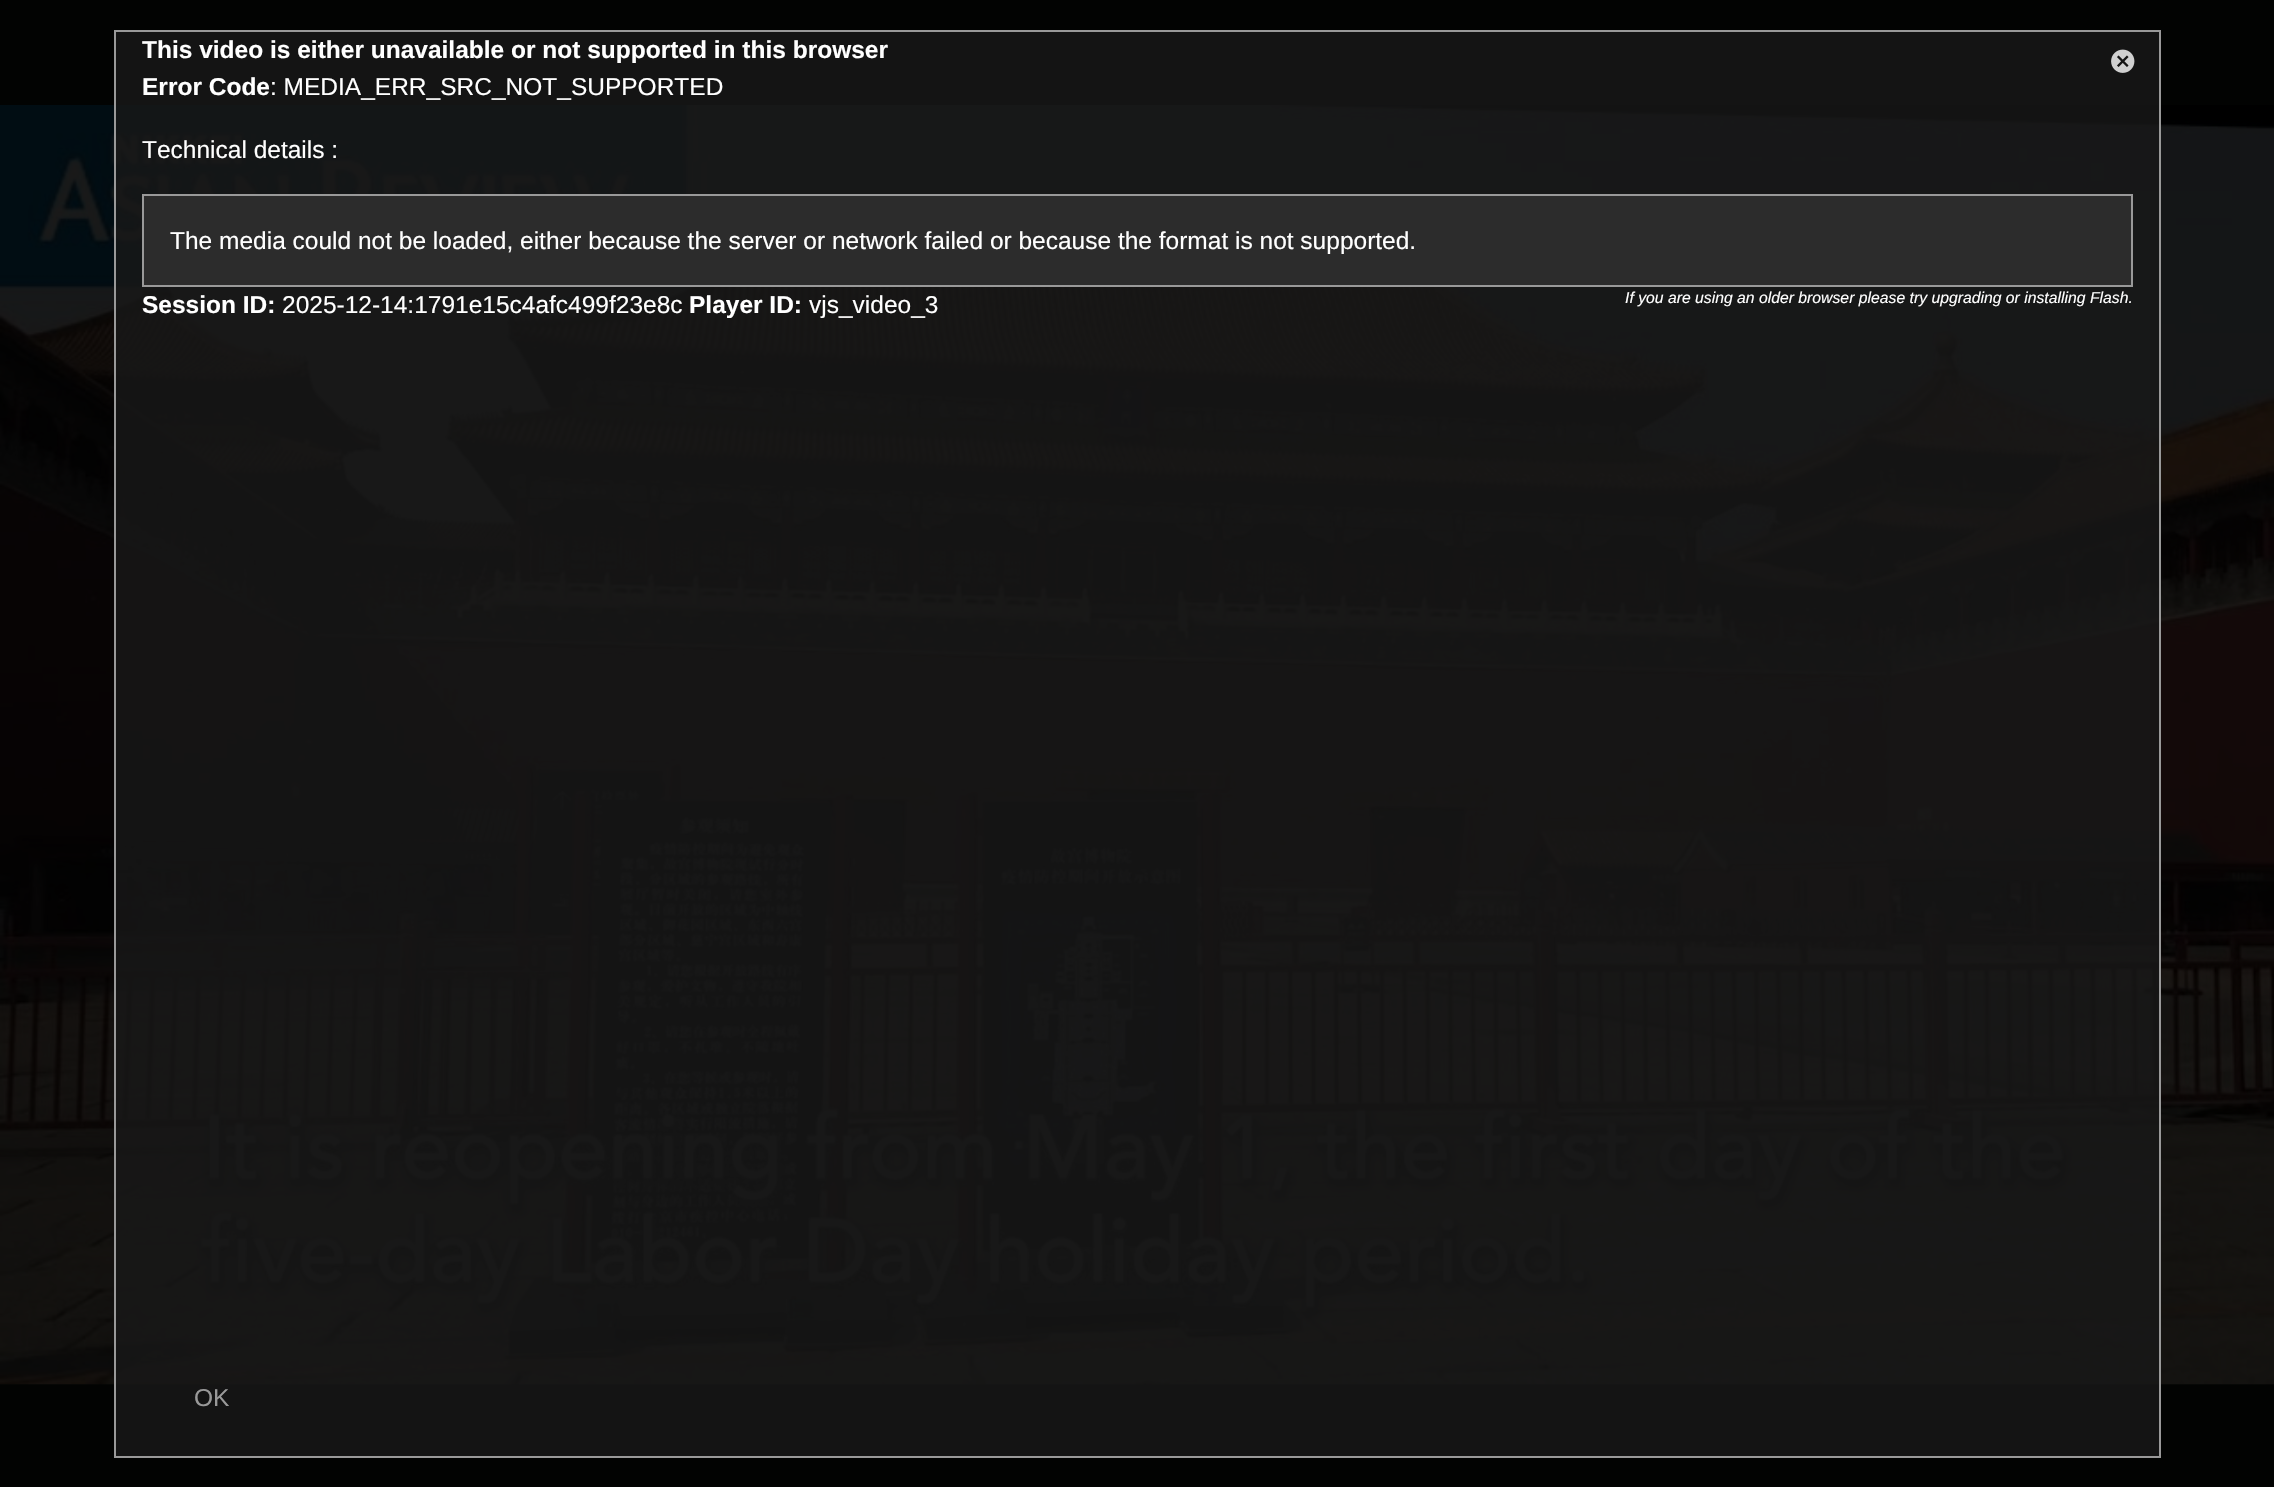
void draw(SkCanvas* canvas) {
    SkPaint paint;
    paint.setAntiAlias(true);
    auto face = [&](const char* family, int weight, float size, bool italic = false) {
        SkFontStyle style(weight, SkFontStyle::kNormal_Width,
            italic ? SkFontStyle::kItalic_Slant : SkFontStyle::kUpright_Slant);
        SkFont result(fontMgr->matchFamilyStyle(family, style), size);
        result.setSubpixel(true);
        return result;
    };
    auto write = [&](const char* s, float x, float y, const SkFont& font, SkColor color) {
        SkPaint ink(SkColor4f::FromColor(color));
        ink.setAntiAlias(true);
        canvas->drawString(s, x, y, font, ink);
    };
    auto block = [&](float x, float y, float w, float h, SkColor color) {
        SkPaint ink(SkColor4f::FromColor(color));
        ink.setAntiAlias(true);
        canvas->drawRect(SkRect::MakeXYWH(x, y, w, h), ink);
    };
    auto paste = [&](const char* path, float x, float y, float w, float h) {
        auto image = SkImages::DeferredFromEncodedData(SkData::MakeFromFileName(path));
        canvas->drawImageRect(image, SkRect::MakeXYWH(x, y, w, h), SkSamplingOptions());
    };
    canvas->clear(SkColorSetRGB(2, 3, 2));
    block(116, 32, 2043, 1424, SkColorSetRGB(20, 20, 20));
    paste("pic1.png", 0, 105, 2274, 1280);
    paint.setStyle(SkPaint::kStroke_Style);
    paint.setStrokeWidth(2);
    paint.setColor(SkColorSetRGB(153, 153, 153));
    canvas->drawRect(SkRect::MakeXYWH(115, 31, 2045, 1426), paint);
    auto kFont1 = face("Liberation Sans", 700, 24.5f);
    write("This video is either unavailable or not supported in this browser", 142, 58, kFont1, SK_ColorWHITE);
    write("Error Code", 142, 95, kFont1, SK_ColorWHITE);
    auto kFont2 = face("Liberation Sans", 400, 24.5f);
    write(": MEDIA_ERR_SRC_NOT_SUPPORTED", 270, 95, kFont2, SK_ColorWHITE);
    write("Technical details :", 142, 158, kFont2, SK_ColorWHITE);
    paint.setStyle(SkPaint::kFill_Style);
    paint.setColor(SkColorSetRGB(44, 44, 44));
    canvas->drawRect(SkRect::MakeXYWH(143, 195, 1989, 91), paint);
    paint.setStyle(SkPaint::kStroke_Style);
    paint.setColor(SkColorSetRGB(153, 153, 153));
    canvas->drawRect(SkRect::MakeXYWH(143, 195, 1989, 91), paint);
    write("The media could not be loaded, either because the server or network failed or because the format is not supported.", 170, 249, kFont2, SK_ColorWHITE);
    write("Session ID:", 142, 313, kFont1, SK_ColorWHITE);
    write("2025-12-14:1791e15c4afc499f23e8c", 282, 313, kFont2, SK_ColorWHITE);
    write("Player ID:", 689, 313, kFont1, SK_ColorWHITE);
    write("vjs_video_3", 809, 313, kFont2, SK_ColorWHITE);
    auto kFont3 = face("Liberation Sans", 400, 15.75f, true);
    write("If you are using an older browser please try upgrading or installing Flash.", 1625, 303, kFont3, SK_ColorWHITE);
    paste("pic2.png", 2111, 49, 24, 24);
    write("OK", 194, 1406, kFont2, SkColorSetRGB(153, 153, 153));
}
